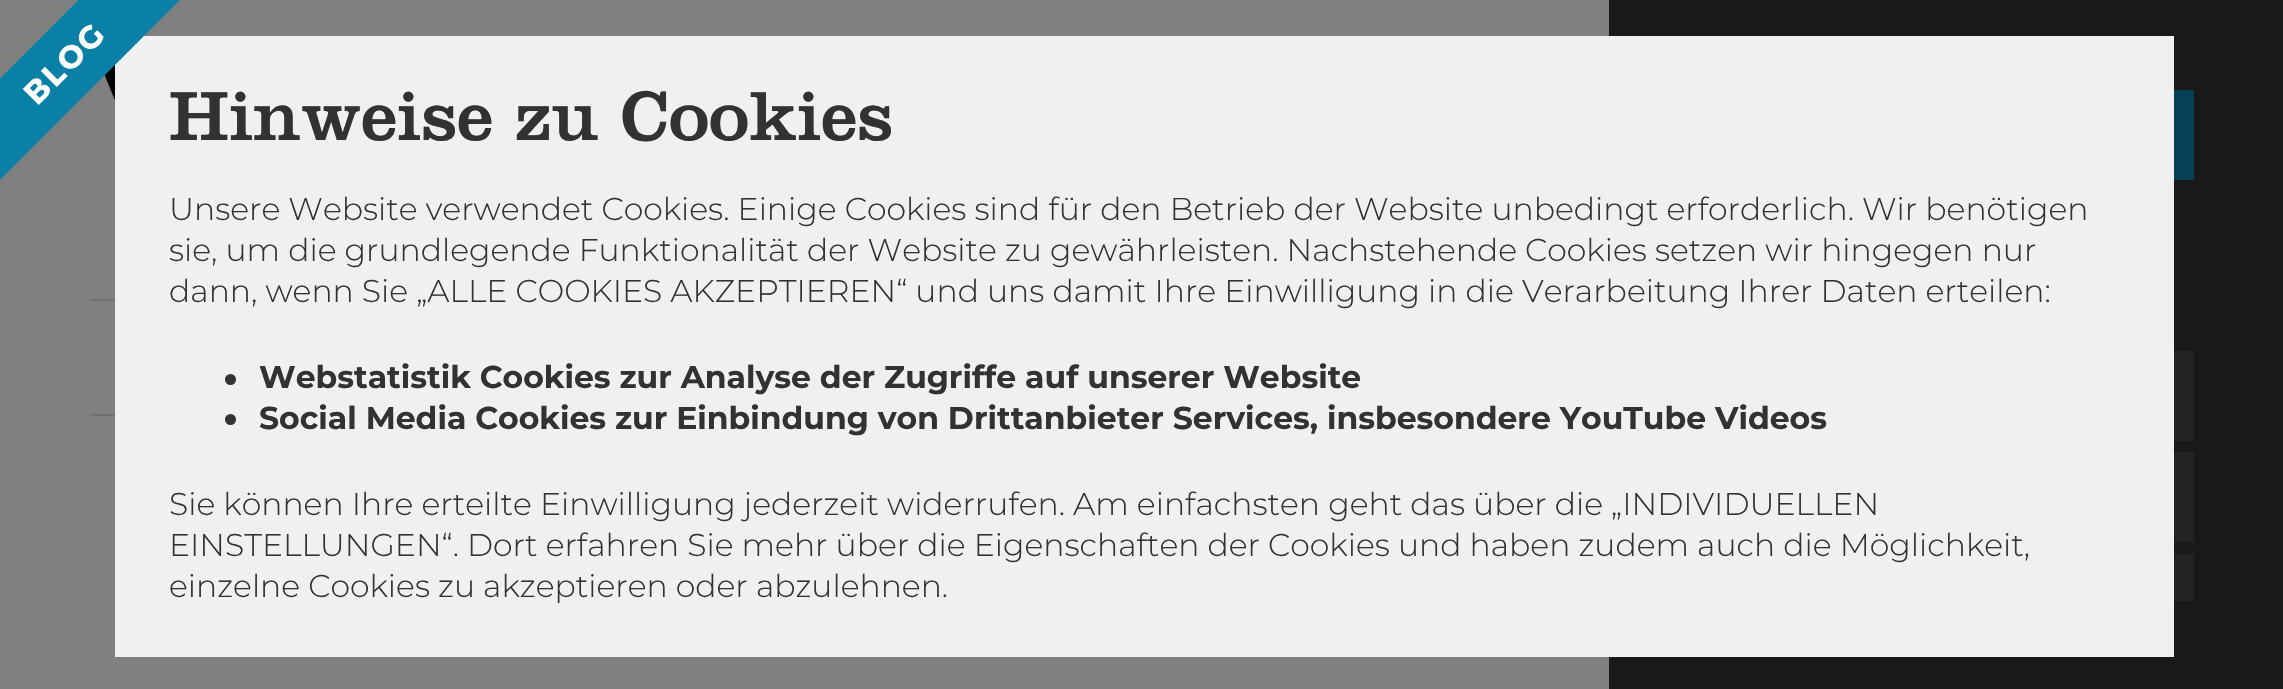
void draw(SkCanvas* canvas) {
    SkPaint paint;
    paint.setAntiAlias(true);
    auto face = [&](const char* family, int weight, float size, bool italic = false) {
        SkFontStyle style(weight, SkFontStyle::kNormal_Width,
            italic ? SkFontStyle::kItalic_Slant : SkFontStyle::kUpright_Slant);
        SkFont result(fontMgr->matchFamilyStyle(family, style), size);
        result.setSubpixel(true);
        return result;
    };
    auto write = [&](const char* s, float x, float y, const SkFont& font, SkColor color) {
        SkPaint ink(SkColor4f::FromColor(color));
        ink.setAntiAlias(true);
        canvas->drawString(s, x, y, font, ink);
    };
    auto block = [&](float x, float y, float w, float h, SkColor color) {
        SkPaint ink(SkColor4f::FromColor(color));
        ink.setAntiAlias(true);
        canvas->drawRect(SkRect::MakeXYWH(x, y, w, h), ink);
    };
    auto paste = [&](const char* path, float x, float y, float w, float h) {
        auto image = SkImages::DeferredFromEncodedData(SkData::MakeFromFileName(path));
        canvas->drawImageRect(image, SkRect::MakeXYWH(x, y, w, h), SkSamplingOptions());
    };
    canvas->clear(SkColorSetRGB(128, 128, 128));
    paste("pic2.png", 104, 65, 11, 35);
    block(1609, 0, 674, 689, SkColorSetRGB(25, 25, 25));
    block(115, 36, 2059, 621, SkColorSetRGB(240, 240, 240));
    auto kFont1 = face("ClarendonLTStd", 400, 72);
    write("Hinweise zu Cookies", 169, 140, kFont1, SkColorSetRGB(50, 50, 50));
    paste("pic1.png", 0, 0, 180, 180);
    block(90, 299, 25, 2, SkColorSetRGB(114, 114, 114));
    block(90, 414, 25, 2, SkColorSetRGB(114, 114, 114));
    block(2174, 90, 20, 90, SkColorSetRGB(6, 64, 84));
    block(2174, 351, 20, 90, SkColorSetRGB(35, 35, 35));
    block(2174, 452, 20, 90, SkColorSetRGB(35, 35, 35));
    block(2174, 554, 20, 47, SkColorSetRGB(35, 35, 35));
    auto kFont2 = face("Montserrat", 300, 31.5f);
    write("Unsere Website verwendet Cookies. Einige Cookies sind für den Betrieb der Website unbedingt erforderlich. Wir benötigen", 169, 220, kFont2, SkColorSetRGB(50, 50, 50));
    write("sie, um die grundlegende Funktionalität der Website zu gewährleisten. Nachstehende Cookies setzen wir hingegen nur", 169, 261, kFont2, SkColorSetRGB(50, 50, 50));
    write("dann, wenn Sie „ALLE COOKIES AKZEPTIEREN“ und uns damit Ihre Einwilligung in die Verarbeitung Ihrer Daten erteilen:", 169, 302, kFont2, SkColorSetRGB(50, 50, 50));
    paint.setColor(SkColorSetRGB(50, 50, 50));
    canvas->drawCircle(230.5f, 379.5f, 5.5f, paint);
    auto kFont3 = face("Montserrat", 700, 31.5f);
    write("Webstatistik Cookies zur Analyse der Zugriffe auf unserer Website", 259, 388, kFont3, SkColorSetRGB(50, 50, 50));
    canvas->drawCircle(230.5f, 419.5f, 5.5f, paint);
    write("Social Media Cookies zur Einbindung von Drittanbieter Services, insbesondere YouTube Videos", 259, 429, kFont3, SkColorSetRGB(50, 50, 50));
    write("Sie können Ihre erteilte Einwilligung jederzeit widerrufen. Am einfachsten geht das über die „INDIVIDUELLEN", 169, 515, kFont2, SkColorSetRGB(50, 50, 50));
    write("EINSTELLUNGEN“. Dort erfahren Sie mehr über die Eigenschaften der Cookies und haben zudem auch die Möglichkeit,", 169, 556, kFont2, SkColorSetRGB(50, 50, 50));
    write("einzelne Cookies zu akzeptieren oder abzulehnen.", 169, 597, kFont2, SkColorSetRGB(50, 50, 50));
}
